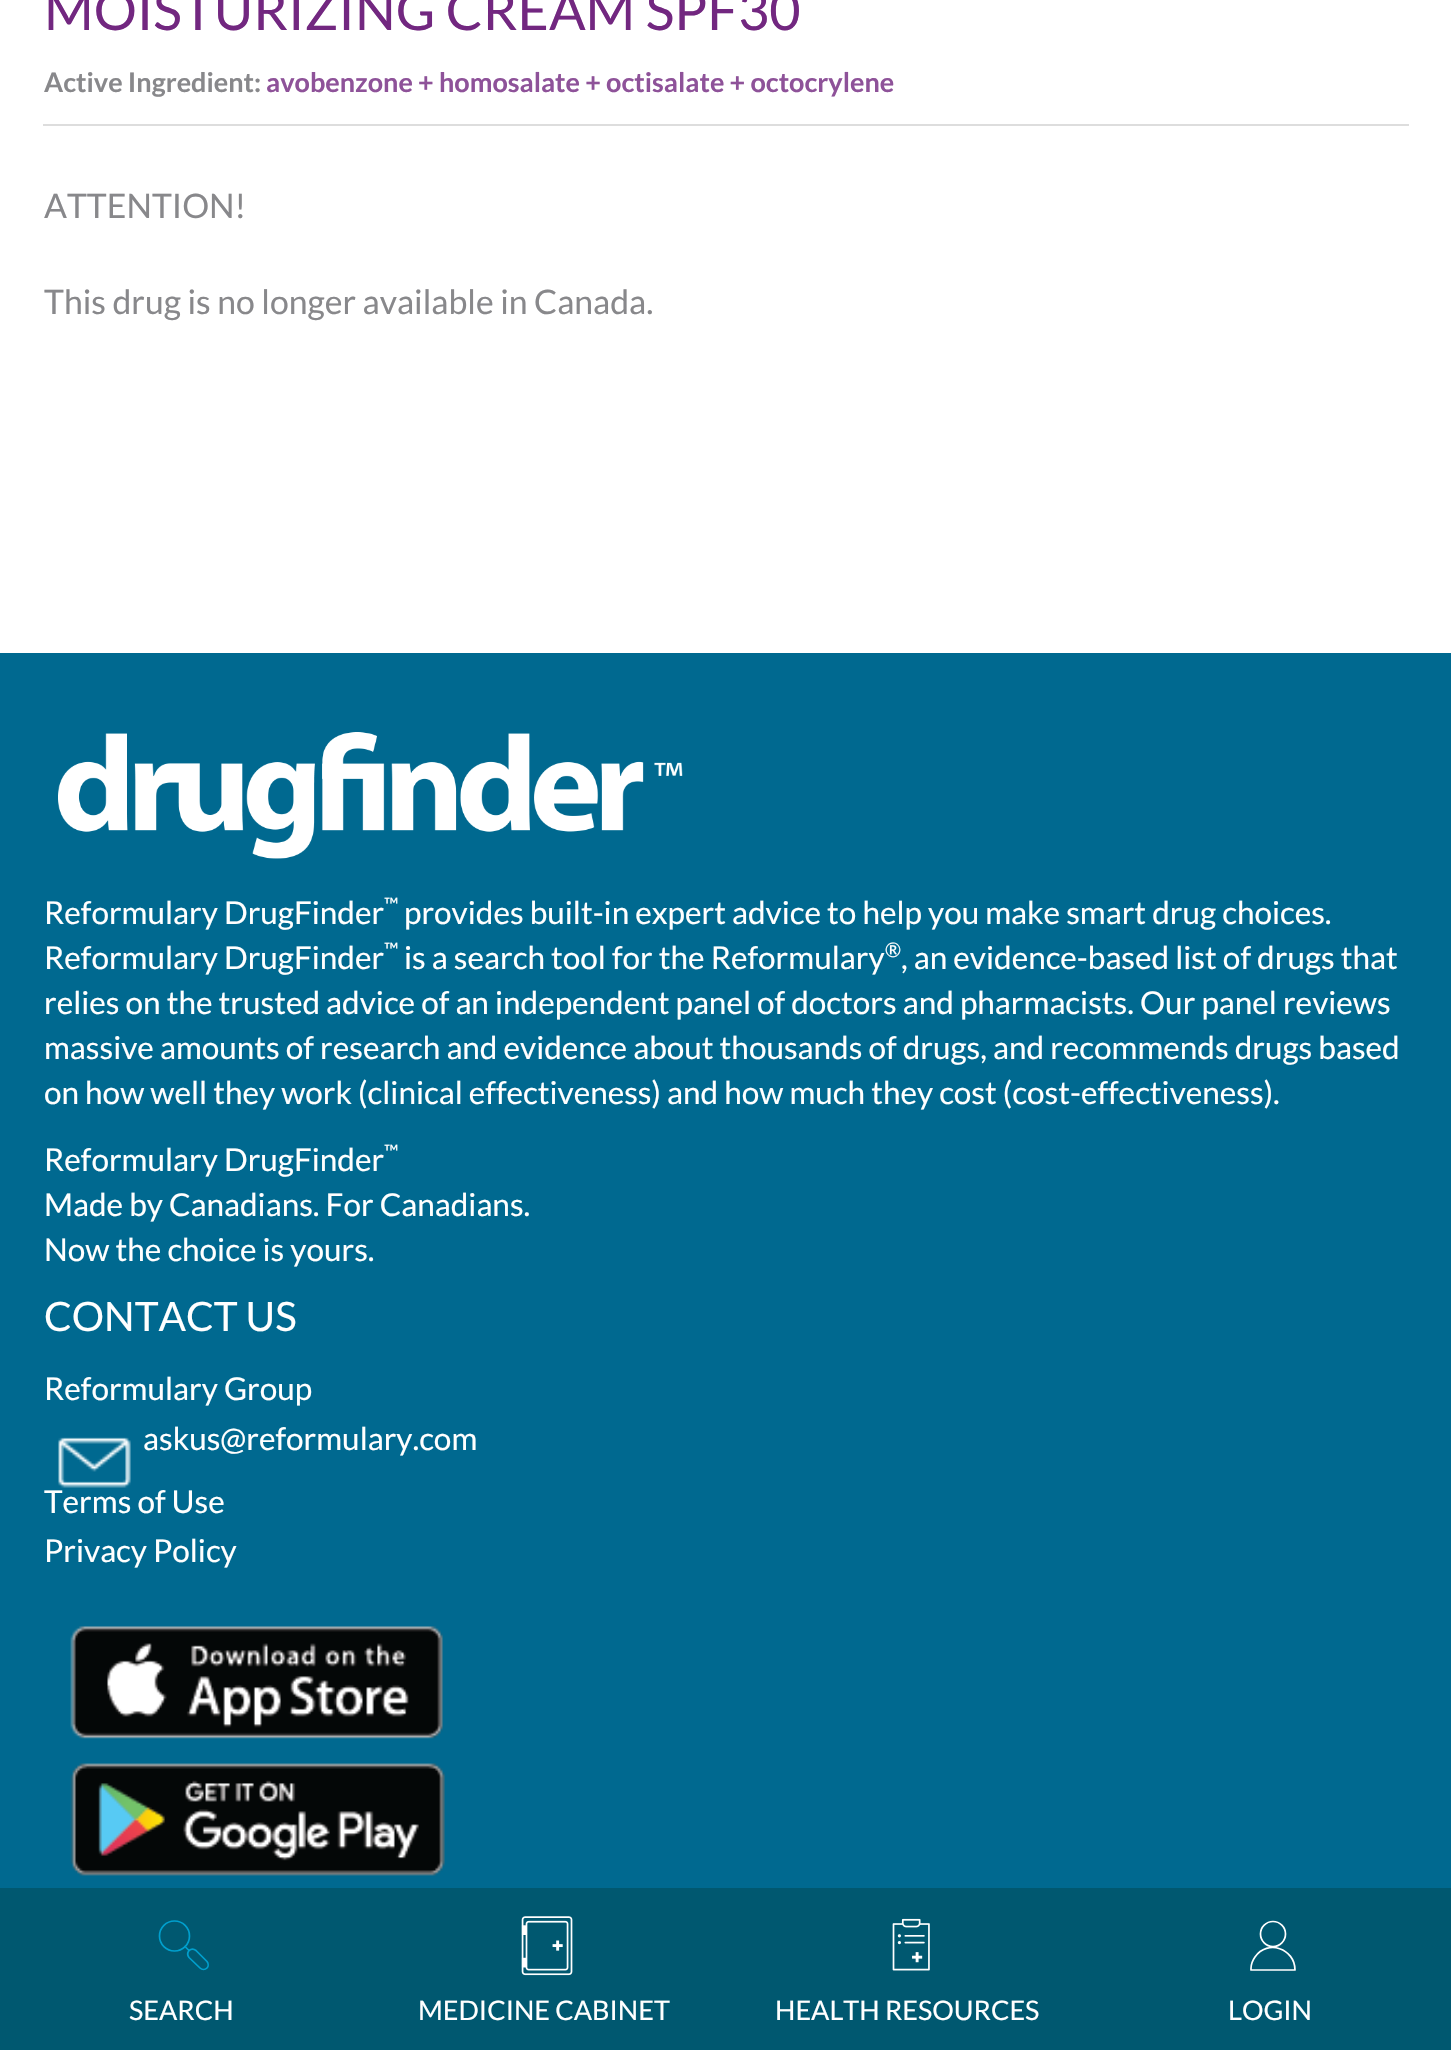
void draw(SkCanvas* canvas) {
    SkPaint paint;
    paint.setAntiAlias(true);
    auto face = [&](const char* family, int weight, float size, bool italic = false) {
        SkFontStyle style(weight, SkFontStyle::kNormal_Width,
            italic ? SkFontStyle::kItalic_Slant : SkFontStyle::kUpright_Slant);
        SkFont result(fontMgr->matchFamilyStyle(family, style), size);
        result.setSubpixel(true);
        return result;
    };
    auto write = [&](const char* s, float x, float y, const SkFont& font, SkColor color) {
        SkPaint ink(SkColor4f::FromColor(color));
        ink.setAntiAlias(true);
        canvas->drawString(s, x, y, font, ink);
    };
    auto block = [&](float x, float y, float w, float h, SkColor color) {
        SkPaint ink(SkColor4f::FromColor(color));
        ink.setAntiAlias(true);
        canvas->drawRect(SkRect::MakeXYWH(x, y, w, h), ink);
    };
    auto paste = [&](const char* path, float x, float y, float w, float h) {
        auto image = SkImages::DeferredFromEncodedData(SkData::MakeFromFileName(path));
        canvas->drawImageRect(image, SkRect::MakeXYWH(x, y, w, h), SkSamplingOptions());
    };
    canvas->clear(SK_ColorWHITE);
    block(43, 124, 1366, 2, SkColorSetRGB(221, 221, 221));
    auto kFont1 = face("Lato", 400, 54);
    write("MOISTURIZING CREAM SPF30", 44, 30, kFont1, SkColorSetRGB(114, 39, 128));
    auto kFont2 = face("Lato", 700, 27);
    write("Active Ingredient:", 44, 92, kFont2, SkColorSetRGB(136, 136, 139));
    write("avobenzone + homosalate + octisalate + octocrylene", 266, 92, kFont2, SkColorSetRGB(142, 82, 153));
    auto kFont3 = face("Lato", 400, 33.75f);
    write("ATTENTION!", 44, 218, kFont3, SkColorSetRGB(136, 136, 139));
    write("This drug is no longer available in Canada.", 44, 314, kFont3, SkColorSetRGB(136, 136, 139));
    block(0, 653, 1451, 1235, SkColorSetRGB(0, 105, 144));
    paste("pic1.png", 58, 732, 625, 127);
    auto kFont4 = face("Lato", 400, 31.5f);
    write("Reformulary DrugFinder", 44, 924, kFont4, SK_ColorWHITE);
    auto kFont5 = face("Lato", 400, 20);
    write("™", 384, 912, kFont5, SK_ColorWHITE);
    write("provides built-in expert advice to help you make smart drug choices.", 404, 924, kFont4, SK_ColorWHITE);
    write("Reformulary DrugFinder", 44, 969, kFont4, SK_ColorWHITE);
    write("™", 384, 957, kFont5, SK_ColorWHITE);
    write("is a search tool for the Reformulary", 404, 969, kFont4, SK_ColorWHITE);
    write("®", 885, 957, kFont5, SK_ColorWHITE);
    write(", an evidence-based list of drugs that", 901, 969, kFont4, SK_ColorWHITE);
    write("relies on the trusted advice of an independent panel of doctors and pharmacists. Our panel reviews", 44, 1014, kFont4, SK_ColorWHITE);
    write("massive amounts of research and evidence about thousands of drugs, and recommends drugs based", 44, 1059, kFont4, SK_ColorWHITE);
    write("on how well they work (clinical effectiveness) and how much they cost (cost-effectiveness).", 44, 1104, kFont4, SK_ColorWHITE);
    write("Reformulary DrugFinder", 44, 1171, kFont4, SK_ColorWHITE);
    write("™", 384, 1159, kFont5, SK_ColorWHITE);
    write("Made by Canadians. For Canadians.", 44, 1216, kFont4, SK_ColorWHITE);
    write("Now the choice is yours.", 44, 1261, kFont4, SK_ColorWHITE);
    auto kFont6 = face("Lato", 400, 40.5f);
    write("CONTACT US", 44, 1331, kFont6, SK_ColorWHITE);
    write("Reformulary Group", 44, 1400, kFont4, SK_ColorWHITE);
    paste("pic2.png", 58, 1437, 73, 51);
    write("askus@reformulary.com", 143, 1450, kFont4, SK_ColorWHITE);
    write("Terms of Use", 44, 1513, kFont4, SK_ColorWHITE);
    write("Privacy Policy", 44, 1562, kFont4, SK_ColorWHITE);
    paste("pic3.png", 70, 1626, 373, 113);
    paste("pic4.png", 70, 1763, 375, 113);
    block(0, 1888, 1451, 162, SkColorSetRGB(0, 88, 112));
    paint.setStyle(SkPaint::kStroke_Style);
    paint.setStrokeWidth(1.7f);
    paint.setColor(SkColorSetRGB(0, 159, 205));
    canvas->drawCircle(174.5f, 1936, 15, paint);
    paint.setStrokeCap(SkPaint::kRound_Cap);
    paint.setStrokeJoin(SkPaint::kRound_Join);
    canvas->drawPath(SkPathBuilder().moveTo(185, 1946.5f).lineTo(189, 1950.5f).moveTo(200, 1968).lineTo(189, 1957.5f).cubicTo(187.5f, 1955.5f, 187.5f, 1952.5f, 189, 1950.5f).cubicTo(191, 1949, 194, 1949, 196, 1950.5f).lineTo(207, 1961.5f).cubicTo(208.5f, 1963.5f, 208.5f, 1966.5f, 207, 1968).cubicTo(205, 1970, 202, 1970, 200, 1968).close().detach(), paint);
    auto kFont7 = face("Lato", 400, 27);
    write("SEARCH", 129, 2020, kFont7, SK_ColorWHITE);
    paste("pic5.png", 521, 1916, 52, 60);
    write("MEDICINE CABINET", 418, 2020, kFont7, SK_ColorWHITE);
    paste("pic6.png", 892, 1918, 38, 53);
    write("HEALTH RESOURCES", 775, 2020, kFont7, SK_ColorWHITE);
    paint.setStrokeCap(SkPaint::kButt_Cap);
    paint.setStrokeJoin(SkPaint::kMiter_Join);
    paint.setColor(SK_ColorWHITE);
    canvas->drawCircle(1273, 1934, 12.5f, paint);
    paint.setStrokeCap(SkPaint::kRound_Cap);
    paint.setStrokeJoin(SkPaint::kRound_Join);
    canvas->drawPath(SkPathBuilder().moveTo(1251, 1968.5f).cubicTo(1251, 1964.5f, 1252.5f, 1960.5f, 1255, 1957).cubicTo(1267.5f, 1939, 1295, 1948.5f, 1295, 1970).lineTo(1251, 1970).close().detach(), paint);
    write("LOGIN", 1228, 2020, kFont7, SK_ColorWHITE);
}
